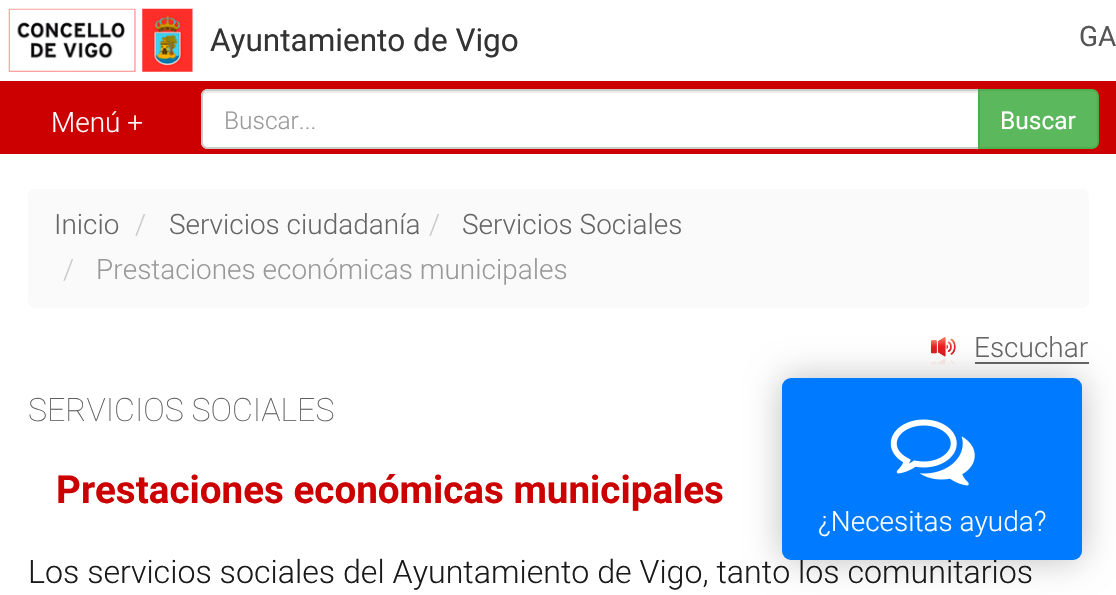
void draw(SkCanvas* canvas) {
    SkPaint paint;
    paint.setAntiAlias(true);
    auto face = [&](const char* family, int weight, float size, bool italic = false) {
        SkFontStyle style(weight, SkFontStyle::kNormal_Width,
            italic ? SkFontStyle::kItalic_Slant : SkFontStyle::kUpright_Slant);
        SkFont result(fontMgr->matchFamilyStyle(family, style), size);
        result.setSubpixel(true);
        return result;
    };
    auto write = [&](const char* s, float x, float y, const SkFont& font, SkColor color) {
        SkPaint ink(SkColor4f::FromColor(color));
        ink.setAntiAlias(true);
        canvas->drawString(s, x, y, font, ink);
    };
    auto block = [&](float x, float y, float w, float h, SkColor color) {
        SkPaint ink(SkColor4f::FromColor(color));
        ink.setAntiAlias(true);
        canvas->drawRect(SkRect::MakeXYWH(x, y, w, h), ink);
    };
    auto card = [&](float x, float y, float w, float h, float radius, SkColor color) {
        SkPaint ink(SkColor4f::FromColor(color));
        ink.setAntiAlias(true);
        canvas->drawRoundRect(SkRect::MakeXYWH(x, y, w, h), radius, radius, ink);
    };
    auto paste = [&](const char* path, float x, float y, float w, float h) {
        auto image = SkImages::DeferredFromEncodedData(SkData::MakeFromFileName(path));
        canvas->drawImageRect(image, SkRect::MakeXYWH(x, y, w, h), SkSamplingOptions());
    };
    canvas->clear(SK_ColorWHITE);
    paste("pic1.png", 8, 8, 185, 64);
    auto kFont1 = face("Roboto", 400, 31.5f);
    write("Ayuntamiento de Vigo", 210, 51, kFont1, SkColorSetRGB(51, 51, 51));
    auto kFont2 = face("Roboto", 400, 28);
    write("GA", 1079, 46, kFont2, SkColorSetRGB(87, 85, 85));
    block(0, 81, 1116, 73, SkColorSetRGB(204, 0, 0));
    auto kFont3 = face("Roboto", 300, 28);
    write("Menú +", 51, 132, kFont3, SK_ColorWHITE);
    paint.setColor(SK_ColorWHITE);
    canvas->drawPath(SkPathBuilder().moveTo(208, 89).lineTo(980, 89).lineTo(980, 149).lineTo(208, 149).cubicTo(204, 149, 201, 146, 201, 142).lineTo(201, 96).cubicTo(201, 92, 204, 89, 208, 89).close().detach(), paint);
    paint.setColor(SkColorSetRGB(236, 236, 236));
    canvas->drawPath(SkPathBuilder().moveTo(208, 93).lineTo(978, 93).lineTo(978, 91).lineTo(208, 91).cubicTo(204, 91, 203, 95, 203, 98).cubicTo(203, 95, 205, 93, 208, 93).close().detach(), paint);
    paint.setStyle(SkPaint::kStroke_Style);
    paint.setStrokeWidth(2);
    paint.setColor(SkColorSetRGB(204, 204, 204));
    canvas->drawPath(SkPathBuilder().moveTo(208, 90).lineTo(979, 90).lineTo(979, 148).lineTo(208, 148).cubicTo(204.5f, 148, 202, 145.5f, 202, 142).lineTo(202, 96).cubicTo(202, 92.5f, 204.5f, 90, 208, 90).close().detach(), paint);
    auto kFont4 = face("Roboto", 300, 24.5f);
    write("Buscar...", 224, 129, kFont4, SkColorSetRGB(153, 153, 153));
    paint.setStyle(SkPaint::kFill_Style);
    paint.setColor(SkColorSetRGB(92, 184, 92));
    canvas->drawPath(SkPathBuilder().moveTo(979, 90).lineTo(1092, 90).cubicTo(1095.5f, 90, 1098, 92.5f, 1098, 96).lineTo(1098, 142).cubicTo(1098, 145.5f, 1095.5f, 148, 1092, 148).lineTo(979, 148).close().detach(), paint);
    paint.setStyle(SkPaint::kStroke_Style);
    paint.setColor(SkColorSetRGB(76, 174, 76));
    canvas->drawPath(SkPathBuilder().moveTo(979, 90).lineTo(1092, 90).cubicTo(1095.5f, 90, 1098, 92.5f, 1098, 96).lineTo(1098, 142).cubicTo(1098, 145.5f, 1095.5f, 148, 1092, 148).lineTo(979, 148).close().detach(), paint);
    auto kFont5 = face("Roboto", 400, 24.5f);
    write("Buscar", 1000, 129, kFont5, SK_ColorWHITE);
    card(28, 189, 1061, 119, 7, SkColorSetRGB(250, 250, 250));
    write("Inicio", 54, 234, kFont3, SkColorSetRGB(102, 102, 102));
    write("/", 135, 234, kFont3, SkColorSetRGB(204, 204, 204));
    write("Servicios ciudadanía", 169, 234, kFont3, SkColorSetRGB(102, 102, 102));
    write("/", 429, 234, kFont3, SkColorSetRGB(204, 204, 204));
    write("Servicios Sociales", 462, 234, kFont3, SkColorSetRGB(102, 102, 102));
    write("/", 63, 279, kFont3, SkColorSetRGB(204, 204, 204));
    write("Prestaciones económicas municipales", 96, 279, kFont3, SkColorSetRGB(153, 153, 153));
    paste("pic2.png", 930, 337, 26, 28);
    write("Escuchar", 974, 357, kFont3, SkColorSetRGB(102, 102, 102));
    block(975, 362, 114, 2, SkColorSetRGB(102, 102, 102));
    auto kFont6 = face("Roboto", 100, 32.2f);
    write("SERVICIOS SOCIALES", 28, 421, kFont6, SkColorSetRGB(95, 95, 95));
    auto kFont7 = face("Roboto", 700, 38.6f);
    write("Prestaciones económicas municipales", 56, 503, kFont7, SkColorSetRGB(204, 0, 0));
    auto kFont8 = face("Roboto", 300, 32.2f);
    write("Los servicios sociales del Ayuntamiento de Vigo, tanto los comunitarios", 28, 583, kFont8, SkColorSetRGB(26, 26, 26));
    paint.setStyle(SkPaint::kFill_Style);
    paint.setColor(SkColorSetARGB(64, 0, 0, 0));
    paint.setMaskFilter(SkMaskFilter::MakeBlur(kNormal_SkBlurStyle, 17.5f));
    canvas->drawRoundRect(SkRect::MakeXYWH(782, 378, 300, 182), 9, 9, paint);
    paint.setMaskFilter(nullptr);
    card(782, 378, 300, 182, 9, SkColorSetRGB(0, 123, 255));
    paste("pic3.png", 890, 419, 85, 67);
    write("¿Necesitas ayuda?", 818, 531, kFont3, SK_ColorWHITE);
}
